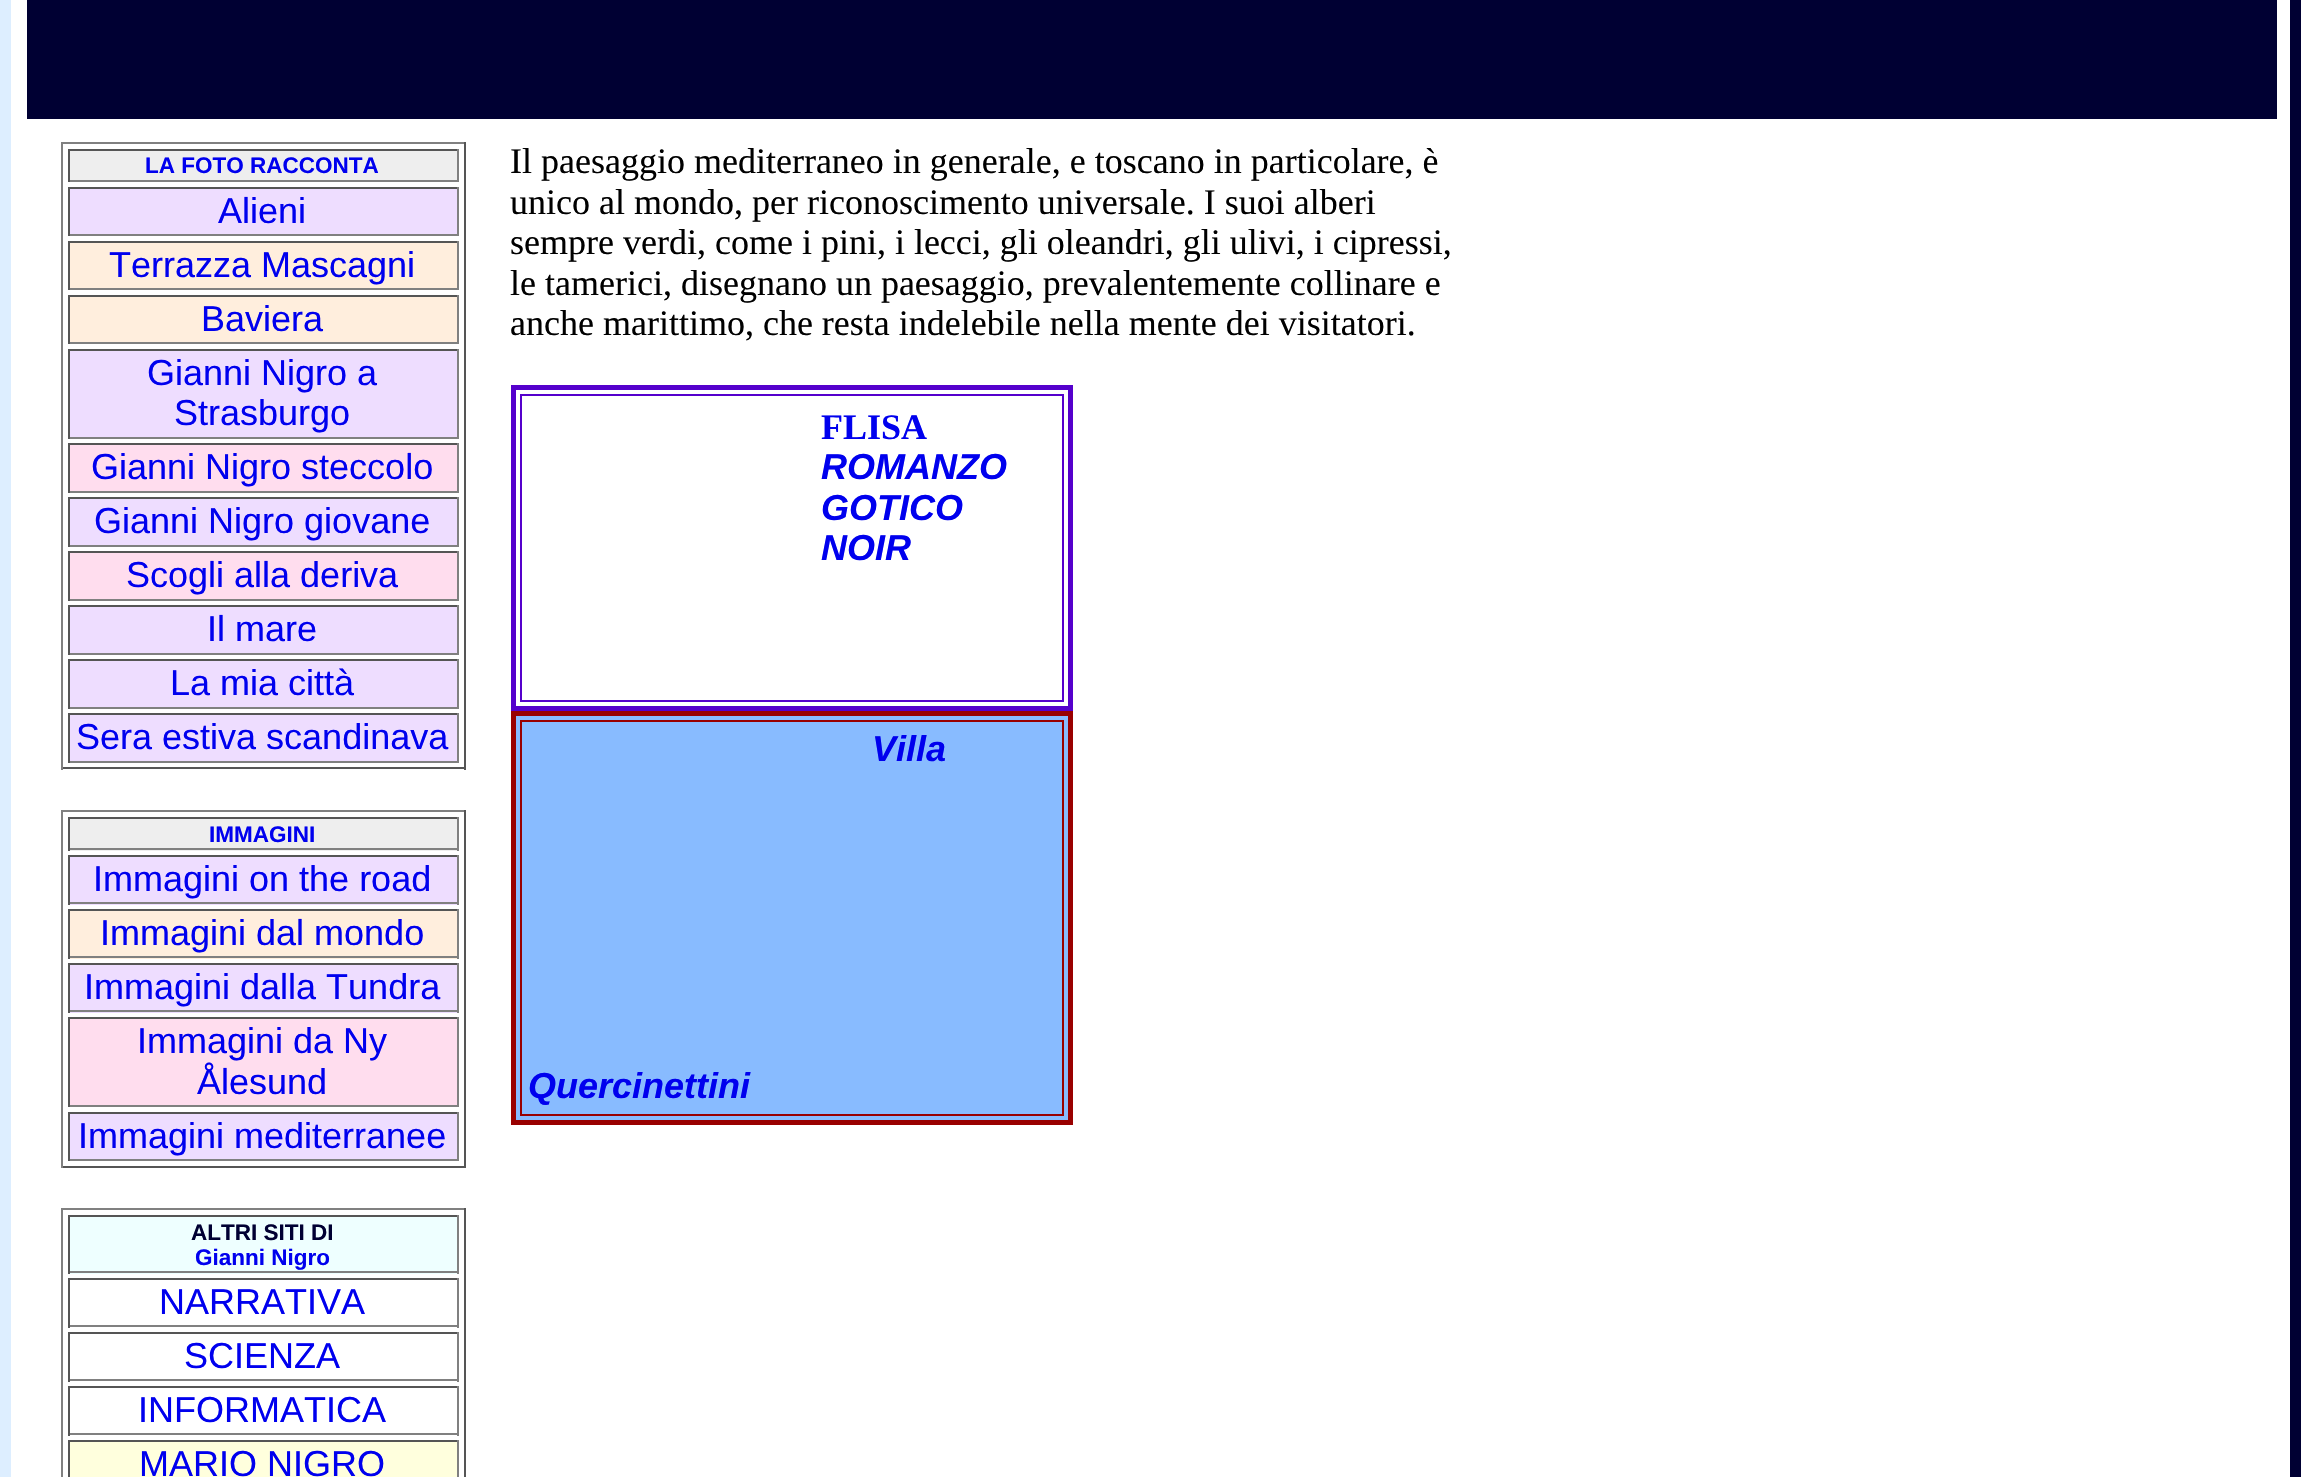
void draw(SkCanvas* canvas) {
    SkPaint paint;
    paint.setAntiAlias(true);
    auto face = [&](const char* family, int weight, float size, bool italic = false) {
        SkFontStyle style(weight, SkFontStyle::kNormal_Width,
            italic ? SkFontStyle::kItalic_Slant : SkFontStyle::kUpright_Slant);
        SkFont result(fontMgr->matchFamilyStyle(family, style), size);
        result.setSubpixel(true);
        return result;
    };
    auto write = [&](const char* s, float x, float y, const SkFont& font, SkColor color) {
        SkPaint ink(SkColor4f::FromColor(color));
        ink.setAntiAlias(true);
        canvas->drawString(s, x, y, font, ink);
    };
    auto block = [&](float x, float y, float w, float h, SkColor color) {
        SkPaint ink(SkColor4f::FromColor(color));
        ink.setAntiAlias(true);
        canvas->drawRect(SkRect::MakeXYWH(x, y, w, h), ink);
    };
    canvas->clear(SK_ColorWHITE);
    paint.setColor(SkColorSetRGB(0, 0, 51));
    canvas->drawPath(SkPathBuilder().moveTo(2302, -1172).lineTo(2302, 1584).lineTo(2290, 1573).lineTo(2290, -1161).close().detach(), paint);
    paint.setColor(SkColorSetRGB(221, 238, 255));
    canvas->drawPath(SkPathBuilder().moveTo(0, 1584).lineTo(0, -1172).lineTo(11, -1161).lineTo(11, 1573).close().detach(), paint);
    block(27, 0, 2250, 119, SkColorSetRGB(0, 0, 51));
    block(61, 142, 405, 2, SkColorSetRGB(128, 128, 128));
    block(464, 142, 2, 628, SkColorSetRGB(85, 85, 85));
    block(61, 767, 405, 2, SkColorSetRGB(85, 85, 85));
    block(61, 142, 2, 628, SkColorSetRGB(128, 128, 128));
    block(70, 151, 387, 29, SkColorSetRGB(238, 238, 238));
    block(68, 149, 391, 2, SkColorSetRGB(85, 85, 85));
    block(457, 149, 2, 33, SkColorSetRGB(128, 128, 128));
    block(68, 180, 391, 2, SkColorSetRGB(128, 128, 128));
    block(68, 149, 2, 33, SkColorSetRGB(85, 85, 85));
    auto kFont1 = face("Liberation Sans", 700, 22.5f);
    write("LA FOTO RACCONTA", 145, 173, kFont1, SkColorSetRGB(0, 0, 238));
    block(70, 189, 387, 45, SkColorSetRGB(238, 221, 255));
    block(68, 187, 391, 2, SkColorSetRGB(85, 85, 85));
    block(457, 187, 2, 49, SkColorSetRGB(128, 128, 128));
    block(68, 234, 391, 2, SkColorSetRGB(128, 128, 128));
    block(68, 187, 2, 49, SkColorSetRGB(85, 85, 85));
    auto kFont2 = face("Liberation Sans", 400, 36);
    write("Alieni", 218, 223, kFont2, SkColorSetRGB(0, 0, 238));
    block(70, 243, 387, 45, SkColorSetRGB(255, 238, 221));
    block(68, 241, 391, 2, SkColorSetRGB(85, 85, 85));
    block(457, 241, 2, 49, SkColorSetRGB(128, 128, 128));
    block(68, 288, 391, 2, SkColorSetRGB(128, 128, 128));
    block(68, 241, 2, 49, SkColorSetRGB(85, 85, 85));
    write("Terrazza Mascagni", 109, 277, kFont2, SkColorSetRGB(0, 0, 238));
    block(70, 297, 387, 45, SkColorSetRGB(255, 238, 221));
    block(68, 295, 391, 2, SkColorSetRGB(85, 85, 85));
    block(457, 295, 2, 49, SkColorSetRGB(128, 128, 128));
    block(68, 342, 391, 2, SkColorSetRGB(128, 128, 128));
    block(68, 295, 2, 49, SkColorSetRGB(85, 85, 85));
    write("Baviera", 201, 331, kFont2, SkColorSetRGB(0, 0, 238));
    block(70, 351, 387, 86, SkColorSetRGB(238, 221, 255));
    block(68, 349, 391, 2, SkColorSetRGB(85, 85, 85));
    block(457, 349, 2, 90, SkColorSetRGB(128, 128, 128));
    block(68, 437, 391, 2, SkColorSetRGB(128, 128, 128));
    block(68, 349, 2, 90, SkColorSetRGB(85, 85, 85));
    write("Gianni Nigro a", 147, 385, kFont2, SkColorSetRGB(0, 0, 238));
    write("Strasburgo", 174, 425, kFont2, SkColorSetRGB(0, 0, 238));
    block(70, 445, 387, 46, SkColorSetRGB(255, 221, 238));
    block(68, 443, 391, 2, SkColorSetRGB(85, 85, 85));
    block(457, 443, 2, 50, SkColorSetRGB(128, 128, 128));
    block(68, 491, 391, 2, SkColorSetRGB(128, 128, 128));
    block(68, 443, 2, 50, SkColorSetRGB(85, 85, 85));
    write("Gianni Nigro steccolo", 91, 479, kFont2, SkColorSetRGB(0, 0, 238));
    block(70, 499, 387, 46, SkColorSetRGB(238, 221, 255));
    block(68, 497, 391, 2, SkColorSetRGB(85, 85, 85));
    block(457, 497, 2, 50, SkColorSetRGB(128, 128, 128));
    block(68, 545, 391, 2, SkColorSetRGB(128, 128, 128));
    block(68, 497, 2, 50, SkColorSetRGB(85, 85, 85));
    write("Gianni Nigro giovane", 94, 533, kFont2, SkColorSetRGB(0, 0, 238));
    block(70, 553, 387, 46, SkColorSetRGB(255, 221, 238));
    block(68, 551, 391, 2, SkColorSetRGB(85, 85, 85));
    block(457, 551, 2, 50, SkColorSetRGB(128, 128, 128));
    block(68, 599, 391, 2, SkColorSetRGB(128, 128, 128));
    block(68, 551, 2, 50, SkColorSetRGB(85, 85, 85));
    write("Scogli alla deriva", 126, 587, kFont2, SkColorSetRGB(0, 0, 238));
    block(70, 607, 387, 46, SkColorSetRGB(238, 221, 255));
    block(68, 605, 391, 2, SkColorSetRGB(85, 85, 85));
    block(457, 605, 2, 50, SkColorSetRGB(128, 128, 128));
    block(68, 653, 391, 2, SkColorSetRGB(128, 128, 128));
    block(68, 605, 2, 50, SkColorSetRGB(85, 85, 85));
    write("Il mare", 207, 641, kFont2, SkColorSetRGB(0, 0, 238));
    block(70, 661, 387, 46, SkColorSetRGB(238, 221, 255));
    block(68, 659, 391, 2, SkColorSetRGB(85, 85, 85));
    block(457, 659, 2, 50, SkColorSetRGB(128, 128, 128));
    block(68, 707, 391, 2, SkColorSetRGB(128, 128, 128));
    block(68, 659, 2, 50, SkColorSetRGB(85, 85, 85));
    write("La mia città", 170, 695, kFont2, SkColorSetRGB(0, 0, 238));
    block(70, 715, 387, 46, SkColorSetRGB(238, 221, 255));
    block(68, 713, 391, 2, SkColorSetRGB(85, 85, 85));
    block(457, 713, 2, 50, SkColorSetRGB(128, 128, 128));
    block(68, 761, 391, 2, SkColorSetRGB(128, 128, 128));
    block(68, 713, 2, 50, SkColorSetRGB(85, 85, 85));
    write("Sera estiva scandinava", 76, 749, kFont2, SkColorSetRGB(0, 0, 238));
    block(61, 810, 405, 2, SkColorSetRGB(128, 128, 128));
    block(464, 810, 2, 358, SkColorSetRGB(85, 85, 85));
    block(61, 1166, 405, 2, SkColorSetRGB(85, 85, 85));
    block(61, 810, 2, 358, SkColorSetRGB(128, 128, 128));
    block(70, 819, 387, 32, SkColorSetRGB(238, 238, 238));
    block(68, 817, 391, 2, SkColorSetRGB(85, 85, 85));
    block(457, 817, 2, 34, SkColorSetRGB(128, 128, 128));
    block(68, 848, 391, 2, SkColorSetRGB(128, 128, 128));
    block(68, 817, 2, 34, SkColorSetRGB(85, 85, 85));
    write("IMMAGINI", 209, 842, kFont1, SkColorSetRGB(0, 0, 238));
    block(70, 857, 387, 48, SkColorSetRGB(238, 221, 255));
    block(68, 855, 391, 2, SkColorSetRGB(85, 85, 85));
    block(457, 855, 2, 50, SkColorSetRGB(128, 128, 128));
    block(68, 902, 391, 2, SkColorSetRGB(128, 128, 128));
    block(68, 855, 2, 50, SkColorSetRGB(85, 85, 85));
    write("Immagini on the road", 93, 891, kFont2, SkColorSetRGB(0, 0, 238));
    block(70, 911, 387, 48, SkColorSetRGB(255, 238, 221));
    block(68, 909, 391, 2, SkColorSetRGB(85, 85, 85));
    block(457, 909, 2, 50, SkColorSetRGB(128, 128, 128));
    block(68, 956, 391, 2, SkColorSetRGB(128, 128, 128));
    block(68, 909, 2, 50, SkColorSetRGB(85, 85, 85));
    write("Immagini dal mondo", 100, 945, kFont2, SkColorSetRGB(0, 0, 238));
    block(70, 965, 387, 48, SkColorSetRGB(238, 221, 255));
    block(68, 963, 391, 2, SkColorSetRGB(85, 85, 85));
    block(457, 963, 2, 50, SkColorSetRGB(128, 128, 128));
    block(68, 1010, 391, 2, SkColorSetRGB(128, 128, 128));
    block(68, 963, 2, 50, SkColorSetRGB(85, 85, 85));
    write("Immagini dalla Tundra", 84, 999, kFont2, SkColorSetRGB(0, 0, 238));
    block(70, 1019, 387, 86, SkColorSetRGB(255, 221, 238));
    block(68, 1017, 391, 2, SkColorSetRGB(85, 85, 85));
    block(457, 1017, 2, 90, SkColorSetRGB(128, 128, 128));
    block(68, 1105, 391, 2, SkColorSetRGB(128, 128, 128));
    block(68, 1017, 2, 90, SkColorSetRGB(85, 85, 85));
    write("Immagini da Ny", 137, 1053, kFont2, SkColorSetRGB(0, 0, 238));
    write("Ålesund", 197, 1094, kFont2, SkColorSetRGB(0, 0, 238));
    block(70, 1114, 387, 45, SkColorSetRGB(238, 221, 255));
    block(68, 1112, 391, 2, SkColorSetRGB(85, 85, 85));
    block(457, 1112, 2, 49, SkColorSetRGB(128, 128, 128));
    block(68, 1159, 391, 2, SkColorSetRGB(128, 128, 128));
    block(68, 1112, 2, 49, SkColorSetRGB(85, 85, 85));
    write("Immagini mediterranee", 78, 1148, kFont2, SkColorSetRGB(0, 0, 238));
    block(61, 1208, 405, 2, SkColorSetRGB(128, 128, 128));
    block(464, 1208, 2, 269, SkColorSetRGB(85, 85, 85));
    block(61, 1208, 2, 269, SkColorSetRGB(128, 128, 128));
    block(70, 1217, 387, 57, SkColorSetRGB(238, 255, 255));
    block(68, 1215, 391, 2, SkColorSetRGB(85, 85, 85));
    block(457, 1215, 2, 59, SkColorSetRGB(128, 128, 128));
    block(68, 1271, 391, 2, SkColorSetRGB(128, 128, 128));
    block(68, 1215, 2, 59, SkColorSetRGB(85, 85, 85));
    write("ALTRI SITI DI", 191, 1240, kFont1, SkColorSetRGB(0, 0, 51));
    write("Gianni Nigro", 195, 1265, kFont1, SkColorSetRGB(0, 0, 238));
    block(68, 1278, 391, 2, SkColorSetRGB(85, 85, 85));
    block(457, 1278, 2, 50, SkColorSetRGB(128, 128, 128));
    block(68, 1325, 391, 2, SkColorSetRGB(128, 128, 128));
    block(68, 1278, 2, 50, SkColorSetRGB(85, 85, 85));
    write("NARRATIVA", 159, 1314, kFont2, SkColorSetRGB(0, 0, 238));
    block(68, 1332, 391, 2, SkColorSetRGB(85, 85, 85));
    block(457, 1332, 2, 50, SkColorSetRGB(128, 128, 128));
    block(68, 1379, 391, 2, SkColorSetRGB(128, 128, 128));
    block(68, 1332, 2, 50, SkColorSetRGB(85, 85, 85));
    write("SCIENZA", 184, 1368, kFont2, SkColorSetRGB(0, 0, 238));
    block(68, 1386, 391, 2, SkColorSetRGB(85, 85, 85));
    block(457, 1386, 2, 50, SkColorSetRGB(128, 128, 128));
    block(68, 1433, 391, 2, SkColorSetRGB(128, 128, 128));
    block(68, 1386, 2, 50, SkColorSetRGB(85, 85, 85));
    write("INFORMATICA", 138, 1422, kFont2, SkColorSetRGB(0, 0, 238));
    block(70, 1442, 387, 35, SkColorSetRGB(255, 255, 221));
    block(68, 1440, 391, 2, SkColorSetRGB(85, 85, 85));
    block(457, 1440, 2, 37, SkColorSetRGB(128, 128, 128));
    block(68, 1440, 2, 37, SkColorSetRGB(85, 85, 85));
    write("MARIO NIGRO", 139, 1476, kFont2, SkColorSetRGB(0, 0, 238));
    auto kFont3 = face("Liberation Serif", 400, 36);
    write("Il paesaggio mediterraneo in generale, e toscano in particolare, è", 510, 173, kFont3, SK_ColorBLACK);
    write("unico al mondo, per riconoscimento universale. I suoi alberi", 510, 214, kFont3, SK_ColorBLACK);
    write("sempre verdi, come i pini, i lecci, gli oleandri, gli ulivi, i cipressi,", 510, 254, kFont3, SK_ColorBLACK);
    write("le tamerici, disegnano un paesaggio, prevalentemente collinare e", 510, 295, kFont3, SK_ColorBLACK);
    write("anche marittimo, che resta indelebile nella mente dei visitatori.", 510, 335, kFont3, SK_ColorBLACK);
    paint.setStyle(SkPaint::kStroke_Style);
    paint.setStrokeWidth(5);
    paint.setColor(SkColorSetRGB(85, 0, 204));
    canvas->drawRect(SkRect::MakeXYWH(513.5f, 387.5f, 557, 321), paint);
    paint.setStrokeWidth(2);
    canvas->drawRect(SkRect::MakeXYWH(521, 395, 542, 306), paint);
    auto kFont4 = face("Liberation Serif", 700, 36);
    write("FLISA", 821, 439, kFont4, SkColorSetRGB(0, 0, 238));
    auto kFont5 = face("Liberation Sans", 700, 36, true);
    write("ROMANZO", 821, 479, kFont5, SkColorSetRGB(0, 0, 238));
    write("GOTICO", 821, 520, kFont5, SkColorSetRGB(0, 0, 238));
    write("NOIR", 821, 560, kFont5, SkColorSetRGB(0, 0, 238));
    paint.setStyle(SkPaint::kFill_Style);
    paint.setColor(SkColorSetRGB(136, 187, 255));
    canvas->drawRect(SkRect::MakeXYWH(513.5f, 713.5f, 557, 409), paint);
    paint.setStyle(SkPaint::kStroke_Style);
    paint.setStrokeWidth(5);
    paint.setColor(SkColorSetRGB(153, 0, 0));
    canvas->drawRect(SkRect::MakeXYWH(513.5f, 713.5f, 557, 409), paint);
    paint.setStrokeWidth(2);
    canvas->drawRect(SkRect::MakeXYWH(521, 721, 542, 394), paint);
    write("Villa", 872, 761, kFont5, SkColorSetRGB(0, 0, 238));
    write("Quercinettini", 528, 1098, kFont5, SkColorSetRGB(0, 0, 238));
}
